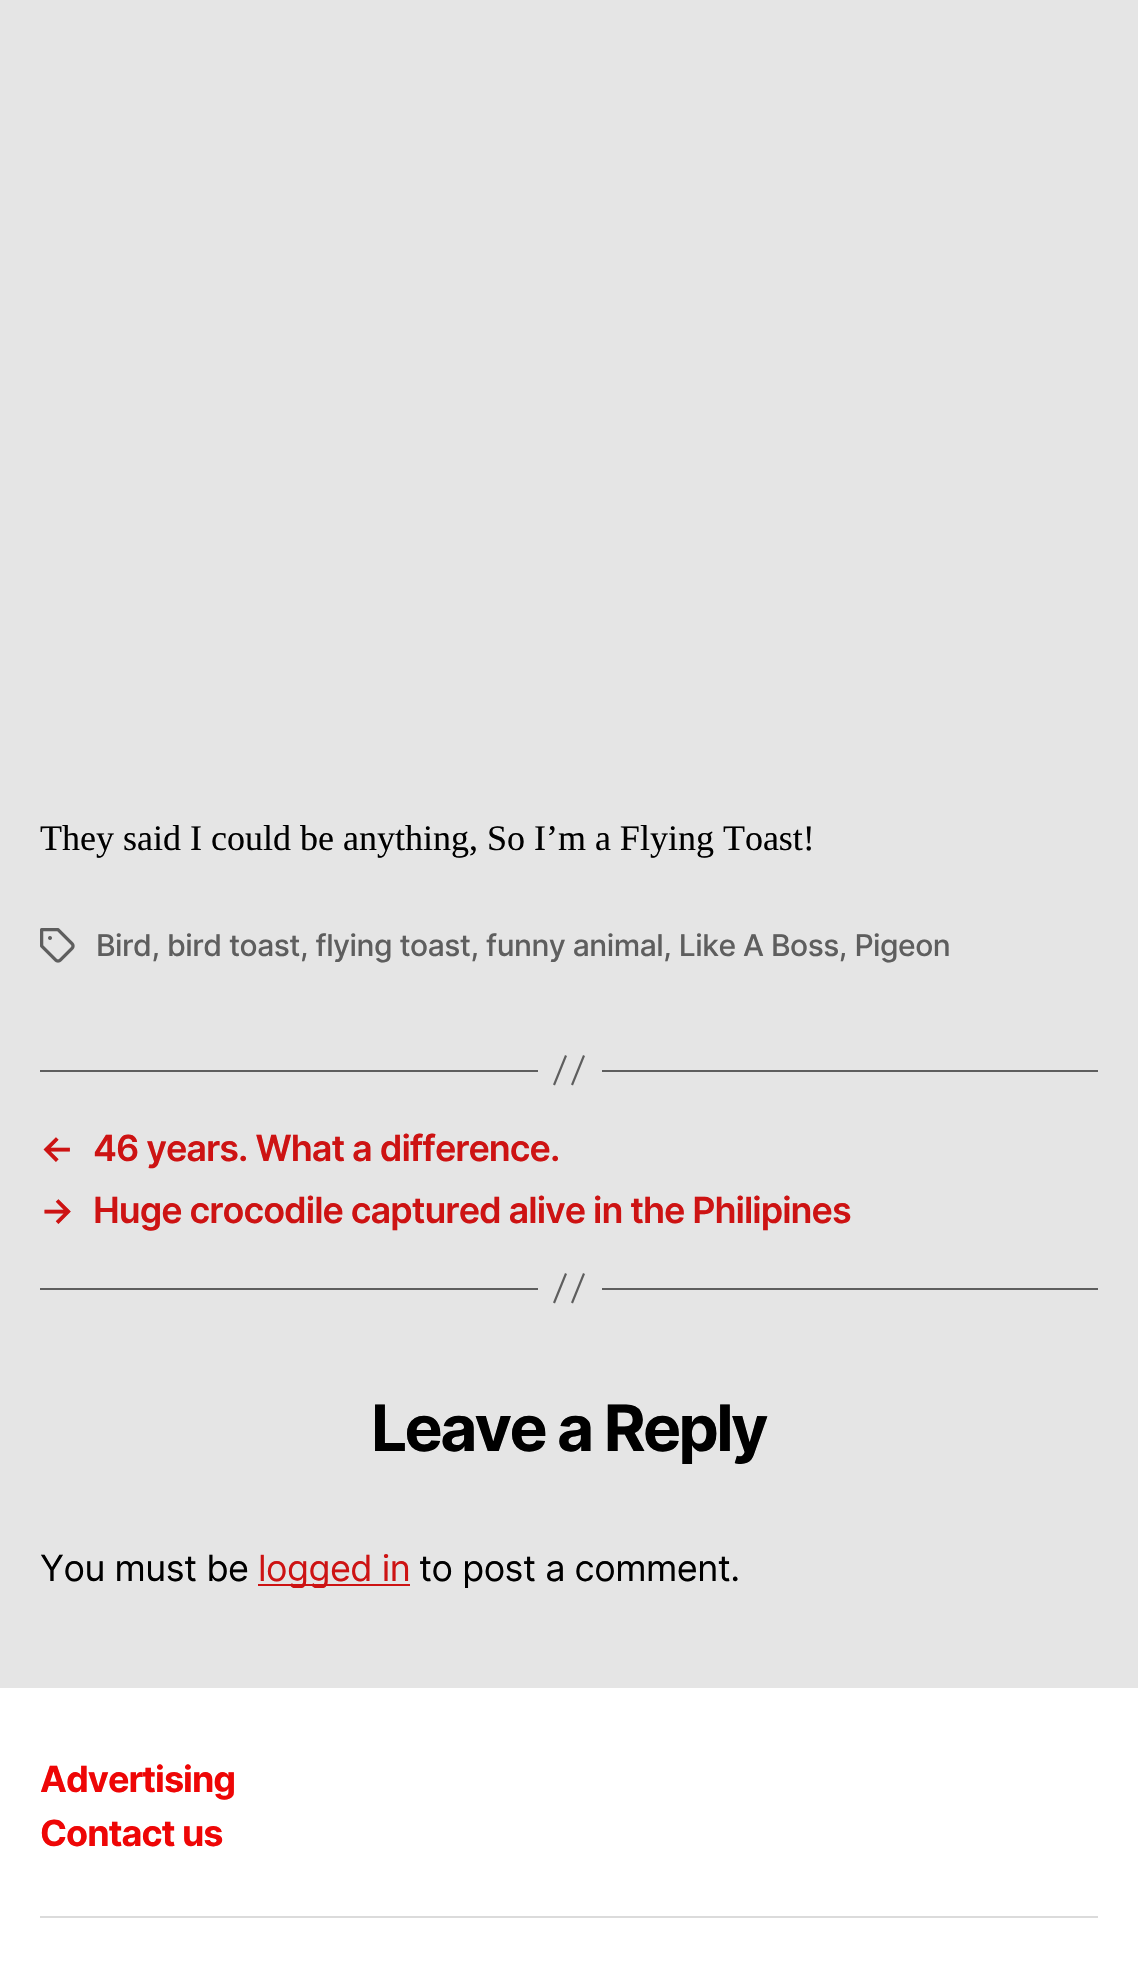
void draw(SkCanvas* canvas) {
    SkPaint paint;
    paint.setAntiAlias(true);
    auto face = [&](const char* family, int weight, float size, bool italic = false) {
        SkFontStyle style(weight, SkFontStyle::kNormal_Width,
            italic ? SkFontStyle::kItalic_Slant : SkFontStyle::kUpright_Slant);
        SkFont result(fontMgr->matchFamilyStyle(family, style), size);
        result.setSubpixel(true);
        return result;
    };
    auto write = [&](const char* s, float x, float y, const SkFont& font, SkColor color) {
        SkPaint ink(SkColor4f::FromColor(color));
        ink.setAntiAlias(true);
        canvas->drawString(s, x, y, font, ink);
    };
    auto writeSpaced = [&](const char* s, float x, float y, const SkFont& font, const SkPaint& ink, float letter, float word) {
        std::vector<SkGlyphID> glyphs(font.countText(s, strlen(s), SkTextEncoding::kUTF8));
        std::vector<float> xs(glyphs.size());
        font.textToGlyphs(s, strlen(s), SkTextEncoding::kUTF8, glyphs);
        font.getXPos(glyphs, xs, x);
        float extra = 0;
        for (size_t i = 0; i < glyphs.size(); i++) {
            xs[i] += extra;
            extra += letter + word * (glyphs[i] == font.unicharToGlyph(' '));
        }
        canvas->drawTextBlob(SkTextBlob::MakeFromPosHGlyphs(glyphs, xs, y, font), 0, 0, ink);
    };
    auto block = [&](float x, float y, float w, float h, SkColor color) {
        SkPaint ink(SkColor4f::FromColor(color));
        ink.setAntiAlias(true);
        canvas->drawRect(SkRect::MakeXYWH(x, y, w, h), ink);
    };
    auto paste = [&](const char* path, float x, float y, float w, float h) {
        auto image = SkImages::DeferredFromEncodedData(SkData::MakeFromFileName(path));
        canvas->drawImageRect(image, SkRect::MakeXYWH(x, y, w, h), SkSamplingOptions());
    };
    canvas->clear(SkColorSetRGB(229, 229, 229));
    auto kFont1 = face("Liberation Serif", 400, 36);
    write("They said I could be anything, So I’m a Flying Toast!", 40, 850, kFont1, SK_ColorBLACK);
    paste("pic1.png", 40, 928, 35, 35);
    auto kFont2 = face("Inter", 500, 30);
    paint.setColor(SkColorSetRGB(94, 94, 94));
    writeSpaced("Bird, bird toast, flying toast, funny animal, Like A Boss, Pigeon", 96, 956, kFont2, paint, -0.5f, 0);
    block(602, 1070, 496, 2, SkColorSetRGB(94, 94, 94));
    block(40, 1070, 498, 2, SkColorSetRGB(94, 94, 94));
    canvas->drawPath(SkPathBuilder().moveTo(565, 1055).lineTo(567, 1056).lineTo(555, 1085.5f).lineTo(553, 1084.5f).close().moveTo(583, 1055).lineTo(585, 1056).lineTo(573, 1085.5f).lineTo(571, 1084.5f).close().detach(), paint);
    auto kFont3 = face("Inter", 600, 36);
    paint.setColor(SkColorSetRGB(205, 19, 19));
    writeSpaced("←", 40, 1161, kFont3, paint, -1, 0);
    writeSpaced("46 years. What a difference.", 93, 1161, kFont3, paint, -1, 0);
    writeSpaced("→", 40, 1223, kFont3, paint, -1, 0);
    writeSpaced("Huge crocodile captured alive in the Philipines", 93, 1223, kFont3, paint, -1, 0);
    block(602, 1288, 496, 2, SkColorSetRGB(94, 94, 94));
    block(40, 1288, 498, 2, SkColorSetRGB(94, 94, 94));
    paint.setColor(SkColorSetRGB(94, 94, 94));
    canvas->drawPath(SkPathBuilder().moveTo(565, 1273).lineTo(567, 1274).lineTo(555, 1303.5f).lineTo(553, 1302.5f).close().moveTo(583, 1273).lineTo(585, 1274).lineTo(573, 1303.5f).lineTo(571, 1302.5f).close().detach(), paint);
    auto kFont4 = face("Inter", 700, 64);
    paint.setColor(SK_ColorBLACK);
    writeSpaced("Leave a Reply", 371, 1451, kFont4, paint, -2.7f, 0);
    auto kFont5 = face("Inter", 400, 36);
    writeSpaced("You must be", 40, 1581, kFont5, paint, -0.5f, 0);
    block(258, 1584, 152, 2, SkColorSetRGB(205, 19, 19));
    canvas->save();
    canvas->clipRect(SkRect::MakeXYWH(0, 0, 1138, 1588));
    paint.setColor(SkColorSetRGB(205, 19, 19));
    writeSpaced("logged in", 258, 1581, kFont5, paint, -0.5f, 0);
    paint.setColor(SK_ColorBLACK);
    writeSpaced("to post a comment.", 419, 1581, kFont5, paint, -0.5f, 0);
    canvas->restore();
    block(0, 1688, 1138, 288, SK_ColorWHITE);
    block(40, 1916, 1058, 2, SkColorSetRGB(219, 219, 219));
    auto kFont6 = face("Inter", 700, 36);
    paint.setColor(SkColorSetRGB(238, 6, 6));
    writeSpaced("Advertising", 40, 1792, kFont6, paint, -1, 0);
    writeSpaced("Contact us", 40, 1846, kFont6, paint, -1, 0);
}
